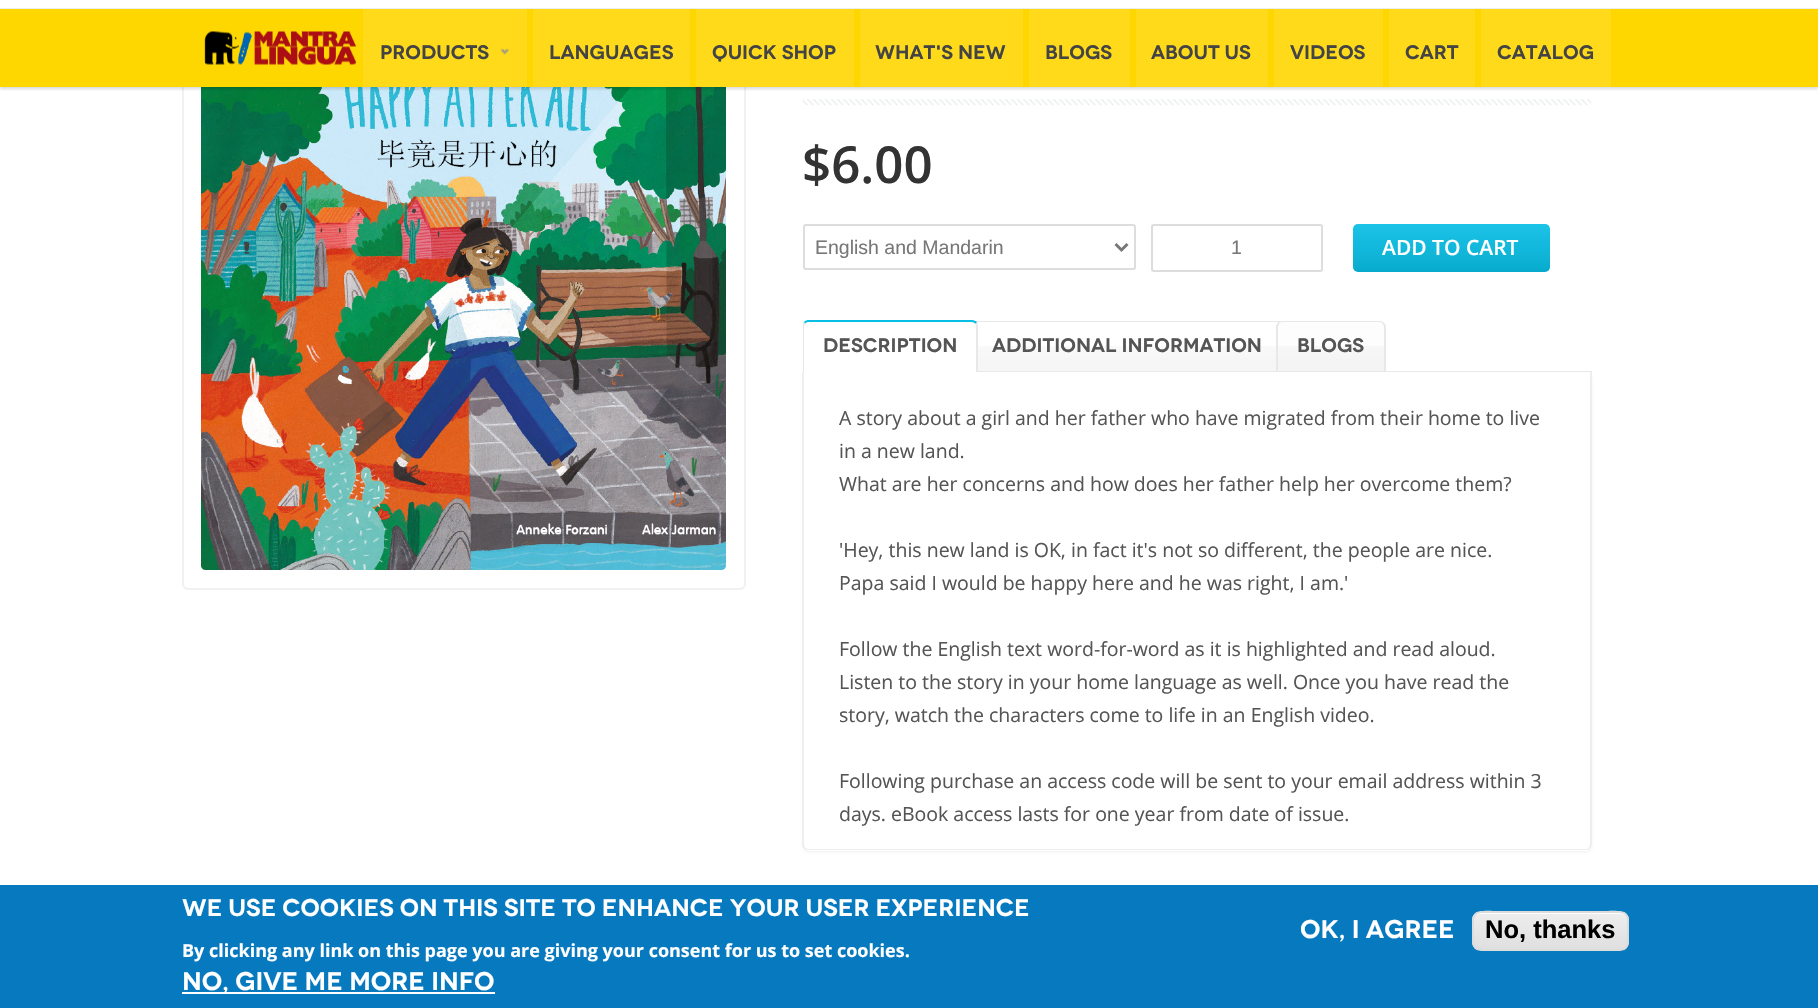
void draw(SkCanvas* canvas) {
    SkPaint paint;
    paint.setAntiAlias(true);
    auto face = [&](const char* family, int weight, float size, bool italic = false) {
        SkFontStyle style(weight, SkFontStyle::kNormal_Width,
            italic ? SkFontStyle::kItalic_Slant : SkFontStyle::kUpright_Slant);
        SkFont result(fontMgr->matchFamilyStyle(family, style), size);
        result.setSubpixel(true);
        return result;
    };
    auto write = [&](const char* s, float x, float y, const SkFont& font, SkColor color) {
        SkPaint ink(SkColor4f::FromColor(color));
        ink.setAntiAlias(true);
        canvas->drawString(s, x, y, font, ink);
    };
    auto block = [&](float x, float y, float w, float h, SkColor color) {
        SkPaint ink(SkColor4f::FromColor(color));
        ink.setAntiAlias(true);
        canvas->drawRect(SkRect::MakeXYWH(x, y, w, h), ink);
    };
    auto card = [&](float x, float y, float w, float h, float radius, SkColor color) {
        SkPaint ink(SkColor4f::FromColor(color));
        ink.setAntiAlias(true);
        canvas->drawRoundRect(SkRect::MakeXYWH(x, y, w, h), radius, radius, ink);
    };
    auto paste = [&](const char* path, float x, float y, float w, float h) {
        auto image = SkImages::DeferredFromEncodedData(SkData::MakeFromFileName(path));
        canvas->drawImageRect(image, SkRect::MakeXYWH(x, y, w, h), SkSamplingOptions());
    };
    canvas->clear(SK_ColorWHITE);
    paint.setStyle(SkPaint::kStroke_Style);
    paint.setStrokeWidth(2);
    paint.setColor(SkColorSetRGB(241, 241, 241));
    canvas->drawRoundRect(SkRect::MakeXYWH(183, 27, 562, 562), 5, 5, paint);
    paste("pic3.png", 201, 87, 525, 483);
    canvas->save();
    canvas->clipRect(SkRect::MakeXYWH(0, 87, 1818, 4));
    paint.setStyle(SkPaint::kFill_Style);
    paint.setColor(SkColorSetARGB(38, 0, 0, 0));
    paint.setMaskFilter(SkMaskFilter::MakeBlur(kNormal_SkBlurStyle, 1.5f));
    canvas->drawRect(SkRect::MakeXYWH(0, -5, 1818, 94), paint);
    paint.setMaskFilter(nullptr);
    canvas->restore();
    block(0, 8, 1818, 1, SkColorSetRGB(238, 238, 238));
    block(0, 9, 1818, 78, SkColorSetRGB(254, 214, 0));
    paste("pic1.png", 204, 31, 153, 34);
    block(363, 9, 164, 78, SkColorSetRGB(254, 218, 26));
    auto kFont1 = face("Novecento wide", 600, 19.5f);
    write("PRODUCTS", 380, 59, kFont1, SkColorSetRGB(68, 68, 68));
    paste("pic2.png", 500, 48, 9, 7);
    block(533, 9, 157, 78, SkColorSetRGB(254, 218, 26));
    write("LANGUAGES", 549, 59, kFont1, SkColorSetRGB(68, 68, 68));
    block(696, 9, 158, 78, SkColorSetRGB(254, 218, 26));
    write("QUICK SHOP", 712, 59, kFont1, SkColorSetRGB(68, 68, 68));
    block(860, 9, 163, 78, SkColorSetRGB(254, 218, 26));
    write("WHAT'S NEW", 875, 59, kFont1, SkColorSetRGB(68, 68, 68));
    block(1029, 9, 101, 78, SkColorSetRGB(254, 218, 26));
    write("BLOGS", 1045, 59, kFont1, SkColorSetRGB(68, 68, 68));
    block(1136, 9, 132, 78, SkColorSetRGB(254, 218, 26));
    write("ABOUT US", 1151, 59, kFont1, SkColorSetRGB(68, 68, 68));
    block(1274, 9, 109, 78, SkColorSetRGB(254, 218, 26));
    write("VIDEOS", 1290, 59, kFont1, SkColorSetRGB(68, 68, 68));
    block(1389, 9, 86, 78, SkColorSetRGB(254, 218, 26));
    write("CART", 1405, 59, kFont1, SkColorSetRGB(68, 68, 68));
    block(1481, 9, 130, 78, SkColorSetRGB(254, 218, 26));
    write("CATALOG", 1497, 59, kFont1, SkColorSetRGB(68, 68, 68));
    paste("pic4.png", 802, 99, 790, 7);
    auto kFont2 = face("Open Sans", 600, 51);
    write("$6.00", 802, 183, kFont2, SkColorSetRGB(51, 51, 51));
    paint.setStyle(SkPaint::kStroke_Style);
    paint.setColor(SkColorSetRGB(221, 221, 221));
    canvas->drawRoundRect(SkRect::MakeXYWH(804, 225, 331, 44), 2, 2, paint);
    paint.setStrokeWidth(3);
    paint.setColor(SkColorSetRGB(119, 119, 119));
    canvas->drawPath(SkPathBuilder().moveTo(1115.5f, 244).lineTo(1121.5f, 250).lineTo(1127.5f, 244).detach(), paint);
    auto kFont3 = face("Liberation Sans", 400, 19.5f);
    write("English and Mandarin", 815, 254, kFont3, SkColorSetRGB(119, 119, 119));
    paint.setStrokeWidth(2);
    paint.setColor(SkColorSetRGB(221, 221, 221));
    canvas->drawRoundRect(SkRect::MakeXYWH(1152, 225, 170, 46), 2, 2, paint);
    write("1", 1231, 254, kFont3, SkColorSetRGB(119, 119, 119));
    card(1353, 224, 197, 48, 5, SkColorSetRGB(7, 190, 229));
    paint.setStyle(SkPaint::kFill_Style);
    {
        const SkColor colors[] = {SkColorSetARGB(20, 255, 255, 255), SkColorSetARGB(26, 0, 0, 0)};
        const float stops[] = {0, 1};
        const SkPoint ends[] = {{1451, 224}, {1451, 272}};
        paint.setShader(SkGradientShader::MakeLinear(ends, colors, stops, 2, SkTileMode::kClamp));
        paint.setAlpha(255);
    }
    canvas->drawRoundRect(SkRect::MakeXYWH(1353, 224, 197, 48), 5, 5, paint);
    auto kFont4 = face("Open Sans", 600, 21);
    write("ADD TO CART", 1382, 255, kFont4, SK_ColorWHITE);
    paint.setShader(nullptr);
    paint.setColor(SkColorSetARGB(13, 0, 0, 0));
    paint.setMaskFilter(SkMaskFilter::MakeBlur(kNormal_SkBlurStyle, 1.5f));
    canvas->drawRoundRect(SkRect::MakeXYWH(803, 374, 789, 478), 6, 6, paint);
    paint.setMaskFilter(nullptr);
    paste("pic5.png", 978, 346, 298, 25);
    paint.setColor(SkColorSetRGB(232, 232, 232));
    canvas->drawPath(SkPathBuilder(SkPathFillType::kEvenOdd).moveTo(978, 321).lineTo(1278, 321).cubicTo(1281, 321, 1284, 324, 1284, 327).lineTo(1284, 372).lineTo(972, 372).lineTo(972, 327).cubicTo(972, 324, 975, 321, 978, 321).close().moveTo(978, 322).lineTo(1278, 322).cubicTo(1280, 322, 1282, 325, 1282, 327).lineTo(1282, 372).lineTo(974, 372).lineTo(974, 327).cubicTo(974, 325, 976, 322, 978, 322).close().detach(), paint);
    paint.setColor(SK_ColorWHITE);
    canvas->drawPath(SkPathBuilder().moveTo(809, 320).lineTo(972, 320).cubicTo(975.5f, 320, 978, 322.5f, 978, 326).lineTo(978, 372).lineTo(803, 372).lineTo(803, 326).cubicTo(803, 322.5f, 805.5f, 320, 809, 320).close().detach(), paint);
    paint.setColor(SkColorSetRGB(7, 190, 229));
    canvas->drawPath(SkPathBuilder().moveTo(808, 320).lineTo(972, 320).cubicTo(974, 320, 976, 321, 977, 322).lineTo(976, 324).cubicTo(975, 323, 973, 322, 972, 322).lineTo(808, 322).cubicTo(807, 322, 805, 323, 805, 324).lineTo(804, 322).cubicTo(805, 321, 806, 320, 808, 320).close().detach(), paint);
    paint.setColor(SkColorSetRGB(232, 232, 232));
    canvas->drawPath(SkPathBuilder().moveTo(977, 322).cubicTo(977, 323, 978, 324, 978, 326).lineTo(978, 372).lineTo(976, 372).lineTo(976, 326).lineTo(976, 324).close().detach(), paint);
    canvas->save();
    canvas->clipRect(SkRect::MakeXYWH(803, 320, 789, 52));
    canvas->drawPath(SkPathBuilder().moveTo(802, 372).lineTo(804, 372).lineTo(804, 326).lineTo(805, 324).lineTo(804, 322).lineTo(802, 323).close().detach(), paint);
    canvas->restore();
    write("Description", 823, 352, kFont1, SkColorSetRGB(85, 85, 85));
    write("Additional information", 992, 352, kFont1, SkColorSetRGB(85, 85, 85));
    paint.setColor(SkColorSetRGB(253, 253, 253));
    canvas->drawPath(SkPathBuilder().moveTo(1283, 321).lineTo(1380, 321).cubicTo(1383.5f, 321, 1386, 323.5f, 1386, 327).lineTo(1386, 372).lineTo(1277, 372).lineTo(1277, 327).cubicTo(1277, 323.5f, 1279.5f, 321, 1283, 321).close().detach(), paint);
    paste("pic6.png", 1278, 346, 106, 25);
    paint.setColor(SkColorSetRGB(232, 232, 232));
    canvas->drawPath(SkPathBuilder(SkPathFillType::kEvenOdd).moveTo(1282, 321).lineTo(1380, 321).cubicTo(1383, 321, 1386, 324, 1386, 327).lineTo(1386, 372).lineTo(1276, 372).lineTo(1276, 327).cubicTo(1276, 324, 1279, 321, 1282, 321).close().moveTo(1282, 322).lineTo(1380, 322).cubicTo(1382, 322, 1384, 325, 1384, 327).lineTo(1384, 372).lineTo(1278, 372).lineTo(1278, 327).cubicTo(1278, 325, 1280, 322, 1282, 322).close().detach(), paint);
    write("Blogs", 1297, 352, kFont1, SkColorSetRGB(85, 85, 85));
    block(978, 371, 614, 1, SkColorSetRGB(233, 233, 233));
    paint.setColor(SK_ColorWHITE);
    canvas->drawPath(SkPathBuilder().moveTo(803, 372).lineTo(1592, 372).lineTo(1592, 845).cubicTo(1592, 848.5f, 1589.5f, 851, 1586, 851).lineTo(809, 851).cubicTo(805.5f, 851, 803, 848.5f, 803, 845).close().detach(), paint);
    paint.setColor(SkColorSetRGB(238, 238, 238));
    canvas->drawPath(SkPathBuilder(SkPathFillType::kEvenOdd).moveTo(802, 372).lineTo(1592, 372).lineTo(1592, 844).cubicTo(1592, 848, 1589, 850, 1586, 850).lineTo(808, 850).cubicTo(805, 850, 802, 848, 802, 844).close().moveTo(804, 372).lineTo(1590, 372).lineTo(1590, 844).cubicTo(1590, 847, 1588, 849, 1586, 849).lineTo(808, 849).cubicTo(806, 849, 804, 847, 804, 844).close().detach(), paint);
    auto kFont5 = face("Open Sans", 400, 19.5f);
    write("A story about a girl and her father who have migrated from their home to live", 839, 425, kFont5, SkColorSetRGB(85, 85, 85));
    write("in a new land.", 839, 458, kFont5, SkColorSetRGB(85, 85, 85));
    write("What are her concerns and how does her father help her overcome them?", 839, 491, kFont5, SkColorSetRGB(85, 85, 85));
    write("'Hey, this new land is OK, in fact it's not so different, the people are nice.", 839, 557, kFont5, SkColorSetRGB(85, 85, 85));
    write("Papa said I would be happy here and he was right, I am.'", 839, 590, kFont5, SkColorSetRGB(85, 85, 85));
    write("Follow the English text word-for-word as it is highlighted and read aloud.", 839, 656, kFont5, SkColorSetRGB(85, 85, 85));
    write("Listen to the story in your home language as well. Once you have read the", 839, 689, kFont5, SkColorSetRGB(85, 85, 85));
    write("story, watch the characters come to life in an English video.", 839, 722, kFont5, SkColorSetRGB(85, 85, 85));
    write("Following purchase an access code will be sent to your email address within 3", 839, 788, kFont5, SkColorSetRGB(85, 85, 85));
    write("days. eBook access lasts for one year from date of issue.", 839, 821, kFont5, SkColorSetRGB(85, 85, 85));
    block(0, 885, 1818, 123, SkColorSetRGB(7, 121, 191));
    auto kFont6 = face("Novecento wide", 600, 24);
    write("We use cookies on this site to enhance your user experience", 182, 916, kFont6, SK_ColorWHITE);
    auto kFont7 = face("Open Sans", 700, 18);
    write("By clicking any link on this page you are giving your consent for us to set cookies.", 182, 957, kFont7, SK_ColorWHITE);
    block(182, 992, 313, 2, SK_ColorWHITE);
    auto kFont8 = face("Novecento wide", 600, 25.5f);
    write("No, give me more info", 182, 990, kFont8, SK_ColorWHITE);
    write("OK, I agree", 1300, 938, kFont8, SK_ColorWHITE);
    canvas->save();
    canvas->clipPath(SkPathBuilder().moveTo(1481, 911).lineTo(1620, 911).cubicTo(1625, 911, 1629, 915, 1629, 920).lineTo(1629, 942).cubicTo(1629, 947, 1625, 951, 1620, 951).lineTo(1481, 951).cubicTo(1476, 951, 1472, 947, 1472, 942).lineTo(1472, 920).cubicTo(1472, 915, 1476, 911, 1481, 911).close().detach(), true);
    {
        const SkColor colors[] = {SkColorSetRGB(237, 237, 237), SkColorSetRGB(223, 223, 223)};
        const float stops[] = {0.05f, 1};
        const SkPoint ends[] = {{1550, 912}, {1550, 950}};
        paint.setShader(SkGradientShader::MakeLinear(ends, colors, stops, 2, SkTileMode::kClamp));
        paint.setAlpha(255);
    }
    canvas->drawRect(SkRect::MakeXYWH(1472, 912, 157, 38), paint);
    canvas->restore();
    paint.setShader(nullptr);
    paint.setColor(SK_ColorWHITE);
    canvas->drawPath(SkPathBuilder().moveTo(1480, 914).lineTo(1620, 914).cubicTo(1624, 914, 1628, 917, 1628, 921).cubicTo(1628, 906, 1604, 912, 1597, 912).lineTo(1504, 912).cubicTo(1497, 912, 1473, 906, 1473, 921).cubicTo(1473, 917, 1476, 914, 1480, 914).close().detach(), paint);
    paint.setStyle(SkPaint::kStroke_Style);
    paint.setColor(SkColorSetRGB(220, 220, 220));
    canvas->drawRoundRect(SkRect::MakeXYWH(1473, 912, 155, 38), 8, 8, paint);
    auto kFont9 = face("Liberation Sans", 700, 25.5f);
    write("No, thanks", 1485, 938, kFont9, SK_ColorBLACK);
}
